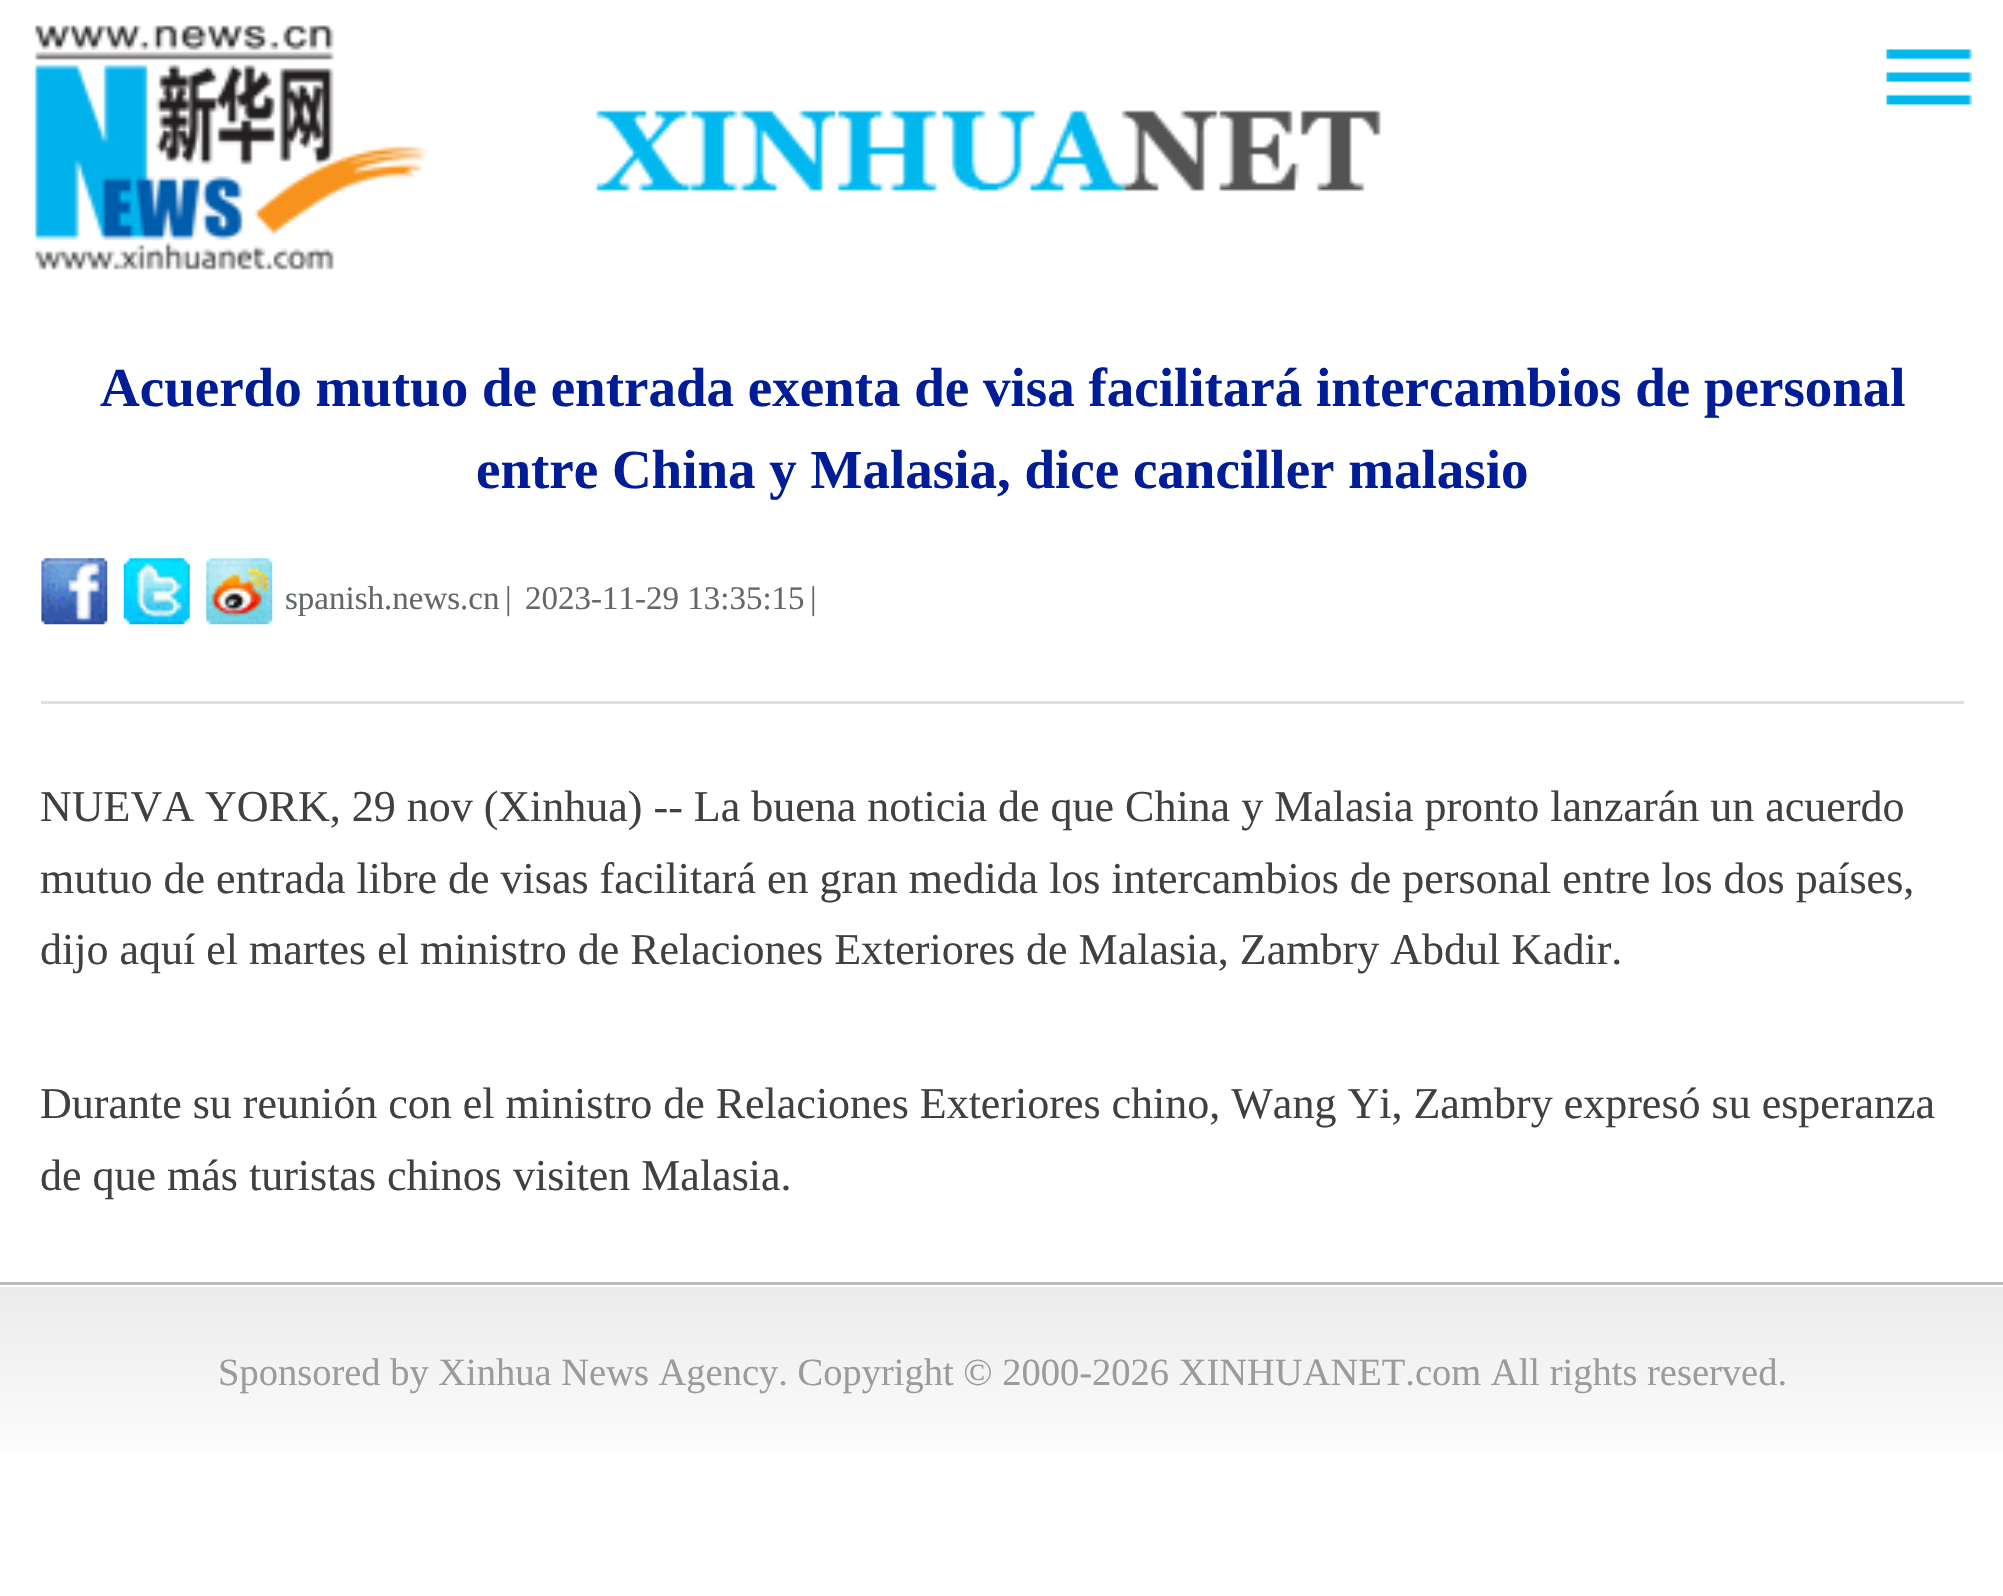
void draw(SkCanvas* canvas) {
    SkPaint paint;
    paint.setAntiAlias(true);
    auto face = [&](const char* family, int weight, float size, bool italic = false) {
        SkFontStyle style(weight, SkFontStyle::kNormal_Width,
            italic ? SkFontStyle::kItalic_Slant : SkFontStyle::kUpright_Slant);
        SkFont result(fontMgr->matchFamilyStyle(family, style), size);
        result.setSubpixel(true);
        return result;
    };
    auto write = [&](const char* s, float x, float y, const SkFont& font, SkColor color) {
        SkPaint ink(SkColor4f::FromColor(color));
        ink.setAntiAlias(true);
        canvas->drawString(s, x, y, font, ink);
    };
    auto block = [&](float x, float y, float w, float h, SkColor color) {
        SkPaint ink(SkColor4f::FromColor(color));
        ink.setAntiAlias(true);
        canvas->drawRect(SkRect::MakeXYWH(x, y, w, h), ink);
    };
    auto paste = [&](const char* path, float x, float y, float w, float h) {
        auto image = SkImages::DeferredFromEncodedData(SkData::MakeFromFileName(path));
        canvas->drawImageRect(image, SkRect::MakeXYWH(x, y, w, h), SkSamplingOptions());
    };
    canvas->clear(SK_ColorWHITE);
    paste("pic1.png", 34, 25, 1347, 245);
    paste("pic2.png", 1886, 49, 86, 56);
    auto kFont1 = face("Liberation Serif", 700, 55);
    write("Acuerdo mutuo de entrada exenta de visa facilitará intercambios de personal", 100, 406, kFont1, SkColorSetRGB(0, 28, 150));
    write("entre China y Malasia, dice canciller malasio", 476, 488, kFont1, SkColorSetRGB(0, 28, 150));
    block(41, 701, 1923, 3, SkColorSetRGB(223, 223, 223));
    paste("pic3.png", 41, 558, 67, 67);
    paste("pic4.png", 123, 558, 67, 67);
    paste("pic5.png", 206, 558, 67, 67);
    auto kFont2 = face("Liberation Serif", 400, 33);
    write("spanish.news.cn", 285, 609, kFont2, SkColorSetRGB(99, 103, 103));
    write("|", 505, 609, kFont2, SkColorSetRGB(99, 103, 103));
    write("2023-11-29 13:35:15", 525, 609, kFont2, SkColorSetRGB(99, 103, 103));
    write("|", 810, 609, kFont2, SkColorSetRGB(99, 103, 103));
    auto kFont3 = face("Liberation Serif", 400, 44);
    write("NUEVA YORK, 29 nov (Xinhua) -- La buena noticia de que China y Malasia pronto lanzarán un acuerdo", 40, 821, kFont3, SkColorSetRGB(64, 64, 64));
    write("mutuo de entrada libre de visas facilitará en gran medida los intercambios de personal entre los dos países,", 40, 893, kFont3, SkColorSetRGB(64, 64, 64));
    write("dijo aquí el martes el ministro de Relaciones Exteriores de Malasia, Zambry Abdul Kadir.", 40, 964, kFont3, SkColorSetRGB(64, 64, 64));
    write("Durante su reunión con el ministro de Relaciones Exteriores chino, Wang Yi, Zambry expresó su esperanza", 40, 1118, kFont3, SkColorSetRGB(64, 64, 64));
    write("de que más turistas chinos visiten Malasia.", 40, 1190, kFont3, SkColorSetRGB(64, 64, 64));
    {
        const SkColor colors[] = {SkColorSetRGB(235, 235, 235), SkColorSetRGB(252, 252, 252)};
        const float stops[] = {0, 1};
        const SkPoint ends[] = {{1002, 1284}, {1002, 1452}};
        paint.setShader(SkGradientShader::MakeLinear(ends, colors, stops, 2, SkTileMode::kClamp));
        paint.setAlpha(255);
    }
    canvas->drawRect(SkRect::MakeXYWH(0, 1287, 2003, 165), paint);
    block(0, 1282, 2003, 3, SkColorSetRGB(186, 186, 186));
    auto kFont4 = face("Liberation Serif", 400, 38.5f);
    write("Sponsored by Xinhua News Agency. Copyright © 2000-2026 XINHUANET.com All rights reserved.", 218, 1385, kFont4, SkColorSetRGB(155, 155, 155));
}
